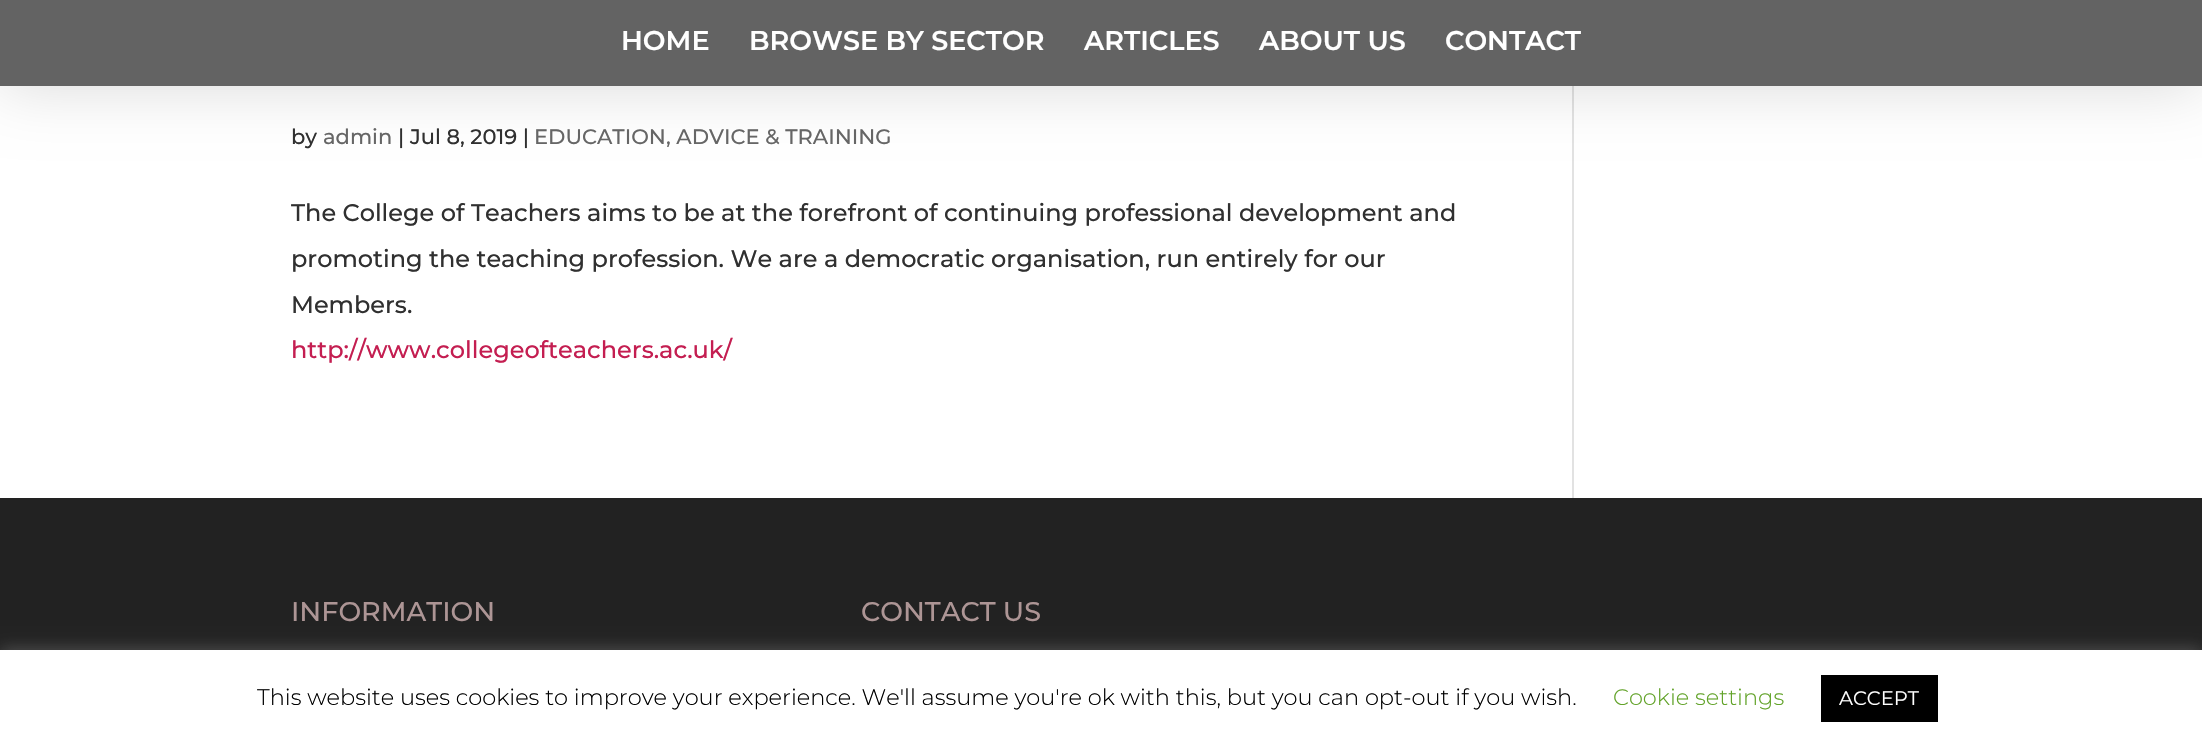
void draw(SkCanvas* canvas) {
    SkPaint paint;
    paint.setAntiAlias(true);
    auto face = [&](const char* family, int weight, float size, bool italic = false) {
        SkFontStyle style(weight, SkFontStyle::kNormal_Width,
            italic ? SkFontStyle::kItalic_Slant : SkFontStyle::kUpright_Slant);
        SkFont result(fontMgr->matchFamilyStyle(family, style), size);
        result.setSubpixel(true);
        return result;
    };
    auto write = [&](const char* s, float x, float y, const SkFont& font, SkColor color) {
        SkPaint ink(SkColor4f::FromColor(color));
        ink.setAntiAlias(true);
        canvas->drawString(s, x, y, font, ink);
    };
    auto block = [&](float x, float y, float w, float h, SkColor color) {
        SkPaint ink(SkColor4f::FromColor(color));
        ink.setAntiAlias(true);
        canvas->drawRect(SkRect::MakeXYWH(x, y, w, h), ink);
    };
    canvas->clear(SK_ColorWHITE);
    block(1572, 86, 2, 412, SkColorSetRGB(226, 226, 226));
    paint.setColor(SkColorSetARGB(38, 0, 0, 0));
    paint.setMaskFilter(SkMaskFilter::MakeBlur(kNormal_SkBlurStyle, 31.5f));
    canvas->drawRect(SkRect::MakeXYWH(0, 0, 2202, 86), paint);
    paint.setMaskFilter(nullptr);
    block(0, 0, 2202, 86, SkColorSetRGB(99, 99, 99));
    auto kFont1 = face("Montserrat", 600, 27);
    write("HOME", 621, 50, kFont1, SK_ColorWHITE);
    write("BROWSE BY SECTOR", 749, 50, kFont1, SK_ColorWHITE);
    write("ARTICLES", 1084, 50, kFont1, SK_ColorWHITE);
    write("ABOUT US", 1259, 50, kFont1, SK_ColorWHITE);
    write("CONTACT", 1445, 50, kFont1, SK_ColorWHITE);
    auto kFont2 = face("Montserrat", 500, 21);
    write("by", 291, 144, kFont2, SkColorSetRGB(48, 48, 48));
    write("admin", 323, 144, kFont2, SkColorSetRGB(102, 102, 102));
    write("| Jul 8, 2019 |", 398, 144, kFont2, SkColorSetRGB(48, 48, 48));
    write("EDUCATION, ADVICE & TRAINING", 534, 144, kFont2, SkColorSetRGB(102, 102, 102));
    auto kFont3 = face("Montserrat", 500, 24);
    write("The College of Teachers aims to be at the forefront of continuing professional development and", 291, 221, kFont3, SkColorSetRGB(48, 48, 48));
    write("promoting the teaching profession. We are a democratic organisation, run entirely for our", 291, 267, kFont3, SkColorSetRGB(48, 48, 48));
    write("Members.", 291, 313, kFont3, SkColorSetRGB(48, 48, 48));
    write("http://www.collegeofteachers.ac.uk/", 291, 358, kFont3, SkColorSetRGB(196, 30, 81));
    block(0, 498, 2202, 152, SkColorSetRGB(34, 34, 34));
    auto kFont4 = face("Montserrat", 500, 27);
    write("INFORMATION", 291, 621, kFont4, SkColorSetRGB(173, 149, 149));
    write("CONTACT US", 861, 621, kFont4, SkColorSetRGB(173, 149, 149));
    paint.setColor(SkColorSetARGB(77, 172, 171, 171));
    paint.setMaskFilter(SkMaskFilter::MakeBlur(kNormal_SkBlurStyle, 7.5f));
    canvas->drawRect(SkRect::MakeXYWH(0, 648, 2202, 98), paint);
    paint.setMaskFilter(nullptr);
    block(0, 650, 2202, 96, SK_ColorWHITE);
    auto kFont5 = face("Montserrat", 300, 22.5f);
    write("This website uses cookies to improve your experience. We'll assume you're ok with this, but you can opt-out if you wish.", 257, 705, kFont5, SK_ColorBLACK);
    write("Cookie settings", 1613, 705, kFont5, SkColorSetRGB(98, 163, 41));
    block(1821, 675, 117, 47, SK_ColorBLACK);
    auto kFont6 = face("Montserrat", 400, 19.5f);
    write("ACCEPT", 1839, 705, kFont6, SK_ColorWHITE);
}
